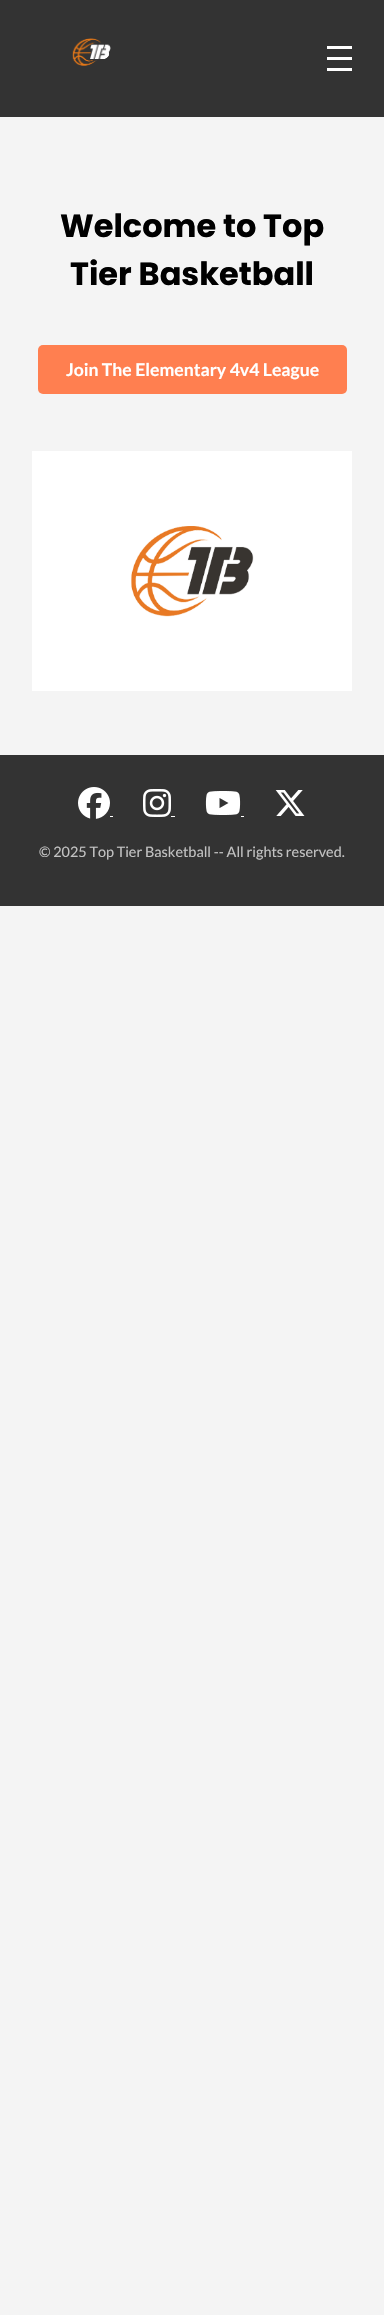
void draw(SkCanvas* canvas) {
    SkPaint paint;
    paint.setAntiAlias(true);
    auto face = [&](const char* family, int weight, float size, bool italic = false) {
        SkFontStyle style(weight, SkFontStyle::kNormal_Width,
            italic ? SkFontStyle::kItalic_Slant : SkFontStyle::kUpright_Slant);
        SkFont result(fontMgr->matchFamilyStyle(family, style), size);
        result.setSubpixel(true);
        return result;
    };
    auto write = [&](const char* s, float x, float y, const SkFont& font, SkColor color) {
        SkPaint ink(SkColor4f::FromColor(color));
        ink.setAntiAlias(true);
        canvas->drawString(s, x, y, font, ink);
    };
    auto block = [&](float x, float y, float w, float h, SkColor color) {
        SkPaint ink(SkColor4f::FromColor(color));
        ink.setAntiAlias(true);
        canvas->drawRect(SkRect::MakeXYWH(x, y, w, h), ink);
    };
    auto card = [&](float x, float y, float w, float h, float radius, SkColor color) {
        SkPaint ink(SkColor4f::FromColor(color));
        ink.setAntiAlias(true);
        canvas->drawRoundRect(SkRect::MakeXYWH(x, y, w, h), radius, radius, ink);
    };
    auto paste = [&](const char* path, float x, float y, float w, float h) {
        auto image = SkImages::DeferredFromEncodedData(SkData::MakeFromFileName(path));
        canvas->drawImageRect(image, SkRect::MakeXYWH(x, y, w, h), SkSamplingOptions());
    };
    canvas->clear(SkColorSetRGB(244, 244, 244));
    block(0, 0, 384, 117, SkColorSetRGB(51, 51, 51));
    paste("pic1.png", 72, 38, 39, 28);
    block(327, 46, 25, 3, SK_ColorWHITE);
    block(327, 57, 25, 3, SK_ColorWHITE);
    block(327, 68, 25, 3, SK_ColorWHITE);
    auto kFont1 = face("Poppins", 700, 32);
    write("Welcome to Top", 60, 237, kFont1, SK_ColorBLACK);
    write("Tier Basketball", 70, 285, kFont1, SK_ColorBLACK);
    card(38, 345, 309, 49, 5, SkColorSetRGB(255, 127, 80));
    auto kFont2 = face("Lato", 700, 17.6f);
    write("Join The Elementary 4v4 League", 66, 376, kFont2, SK_ColorWHITE);
    paste("pic2.png", 32, 451, 320, 240);
    block(0, 755, 384, 151, SkColorSetRGB(51, 51, 51));
    paste("pic3.png", 78, 787, 32, 32);
    block(110, 816, 3, 1, SK_ColorWHITE);
    paste("pic4.png", 143, 789, 28, 28);
    block(171, 816, 4, 1, SK_ColorWHITE);
    paste("pic5.png", 205, 791, 36, 24);
    block(241, 816, 3, 1, SK_ColorWHITE);
    paste("pic6.png", 275, 790, 30, 26);
    auto kFont3 = face("Lato", 400, 14.4f);
    write("© 2025 Top Tier Basketball -- All rights reserved.", 39, 857, kFont3, SkColorSetRGB(194, 194, 194));
}
